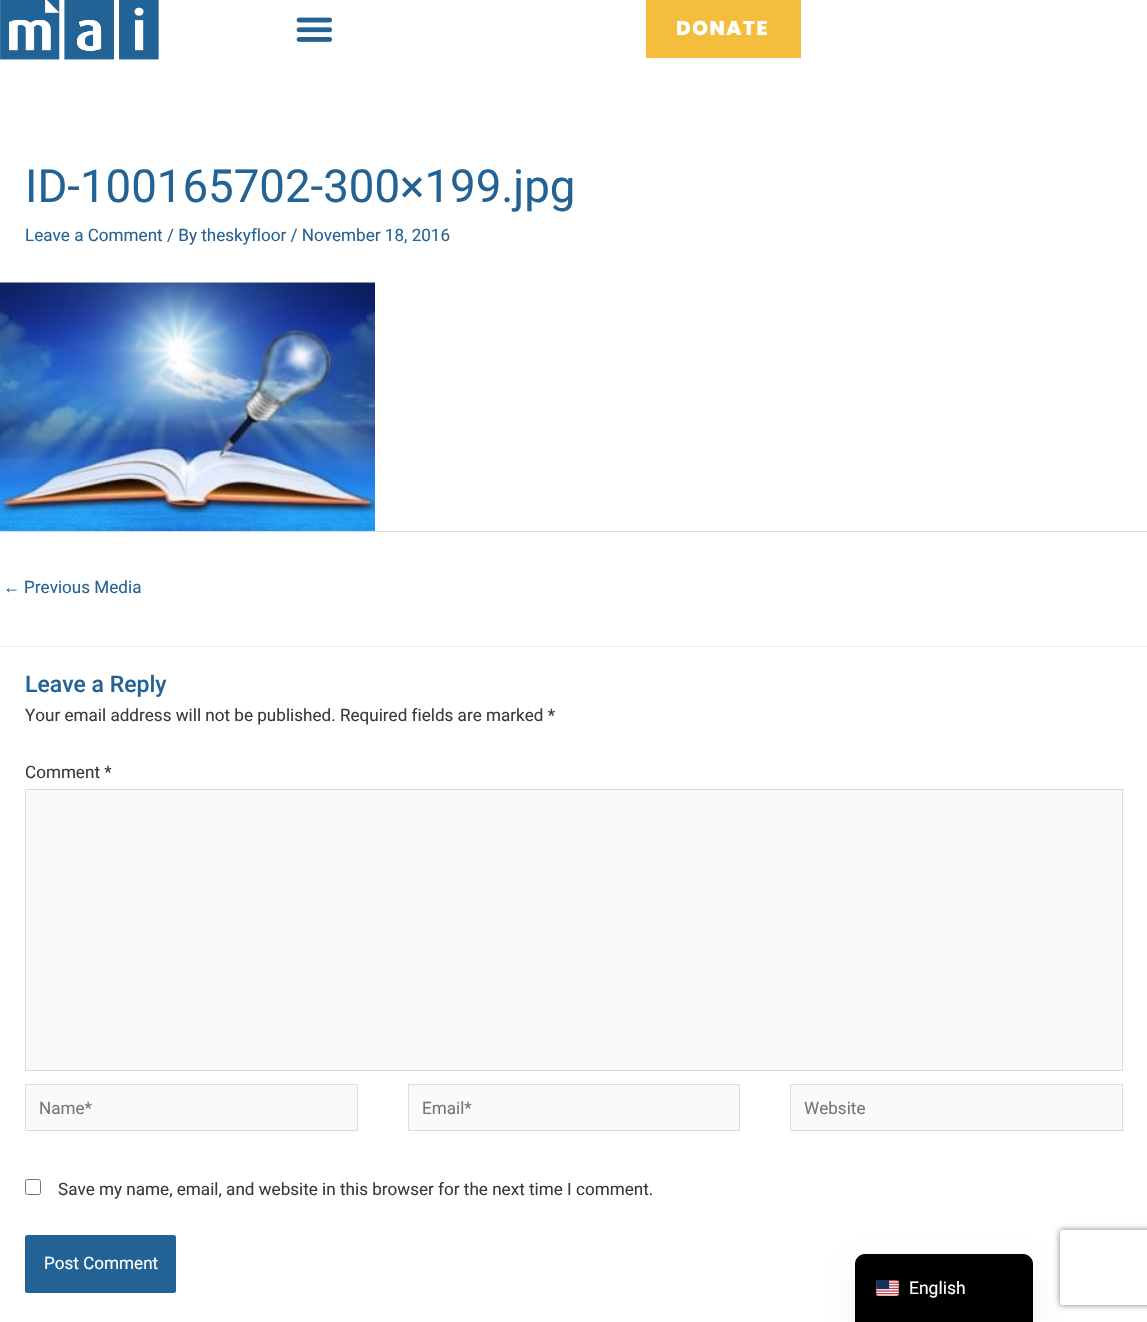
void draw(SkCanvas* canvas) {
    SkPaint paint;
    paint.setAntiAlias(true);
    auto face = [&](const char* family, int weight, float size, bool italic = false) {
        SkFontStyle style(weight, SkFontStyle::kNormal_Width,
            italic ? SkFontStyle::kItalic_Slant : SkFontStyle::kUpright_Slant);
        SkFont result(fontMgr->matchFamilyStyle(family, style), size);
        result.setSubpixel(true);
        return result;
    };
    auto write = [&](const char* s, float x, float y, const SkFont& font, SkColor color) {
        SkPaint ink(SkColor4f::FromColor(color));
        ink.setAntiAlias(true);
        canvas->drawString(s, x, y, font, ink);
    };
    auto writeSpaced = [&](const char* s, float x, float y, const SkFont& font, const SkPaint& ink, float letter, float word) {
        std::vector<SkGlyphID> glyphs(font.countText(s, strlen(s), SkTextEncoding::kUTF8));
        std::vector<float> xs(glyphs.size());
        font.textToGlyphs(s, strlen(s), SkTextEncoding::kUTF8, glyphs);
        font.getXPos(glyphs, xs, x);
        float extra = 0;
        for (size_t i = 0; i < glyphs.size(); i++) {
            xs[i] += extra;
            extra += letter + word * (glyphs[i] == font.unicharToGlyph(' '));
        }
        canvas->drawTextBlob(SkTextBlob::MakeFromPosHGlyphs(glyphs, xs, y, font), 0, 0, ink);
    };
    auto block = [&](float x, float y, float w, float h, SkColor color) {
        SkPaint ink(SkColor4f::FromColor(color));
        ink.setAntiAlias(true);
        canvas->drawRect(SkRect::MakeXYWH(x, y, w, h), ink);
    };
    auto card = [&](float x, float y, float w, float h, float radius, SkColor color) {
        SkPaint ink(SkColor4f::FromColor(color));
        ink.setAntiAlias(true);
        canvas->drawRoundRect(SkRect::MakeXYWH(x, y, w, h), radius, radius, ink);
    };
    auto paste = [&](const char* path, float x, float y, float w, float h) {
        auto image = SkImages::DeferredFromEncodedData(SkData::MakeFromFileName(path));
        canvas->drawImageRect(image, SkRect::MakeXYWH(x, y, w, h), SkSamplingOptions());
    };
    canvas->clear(SK_ColorWHITE);
    paste("pic1.png", 0, 0, 159, 60);
    paste("pic2.png", 296, 17, 37, 25);
    block(646, 0, 155, 58, SkColorSetRGB(244, 189, 60));
    auto kFont1 = face("Poppins", 800, 20);
    paint.setColor(SK_ColorWHITE);
    writeSpaced("DONATE", 676, 35, kFont1, paint, 1.5f, 0);
    auto kFont2 = face("Roboto", 400, 45.6f);
    write("ID-100165702-300×199.jpg", 25, 202, kFont2, SkColorSetRGB(35, 98, 149));
    auto kFont3 = face("Roboto", 400, 17.1f);
    write("Leave a Comment / By theskyfloor / November 18, 2016", 25, 241, kFont3, SkColorSetRGB(35, 98, 149));
    paste("pic3.png", 0, 282, 375, 249);
    block(0, 531, 1147, 1, SkColorSetRGB(221, 221, 221));
    auto kFont4 = face("Liberation Sans", 400, 17.1f);
    write("←", 3, 593, kFont4, SkColorSetRGB(35, 98, 149));
    write("Previous Media", 24, 593, kFont3, SkColorSetRGB(35, 98, 149));
    block(0, 646, 1147, 1, SkColorSetRGB(238, 238, 238));
    auto kFont5 = face("Roboto", 500, 23);
    write("Leave a Reply", 25, 692, kFont5, SkColorSetRGB(35, 98, 149));
    write("Your email address will not be published. Required fields are marked *", 25, 721, kFont3, SkColorSetRGB(58, 58, 58));
    write("Comment *", 25, 778, kFont3, SkColorSetRGB(58, 58, 58));
    paint.setColor(SkColorSetRGB(250, 250, 250));
    canvas->drawRect(SkRect::MakeXYWH(25.5f, 789.5f, 1097, 281), paint);
    paint.setStyle(SkPaint::kStroke_Style);
    paint.setStrokeWidth(1);
    paint.setColor(SkColorSetRGB(221, 221, 221));
    canvas->drawRect(SkRect::MakeXYWH(25.5f, 789.5f, 1097, 281), paint);
    paint.setStyle(SkPaint::kFill_Style);
    paint.setColor(SkColorSetRGB(250, 250, 250));
    canvas->drawRect(SkRect::MakeXYWH(25.5f, 1084.5f, 332, 46), paint);
    paint.setStyle(SkPaint::kStroke_Style);
    paint.setColor(SkColorSetRGB(221, 221, 221));
    canvas->drawRect(SkRect::MakeXYWH(25.5f, 1084.5f, 332, 46), paint);
    write("Name*", 39, 1114, kFont3, SkColorSetRGB(117, 117, 117));
    paint.setStyle(SkPaint::kFill_Style);
    paint.setColor(SkColorSetRGB(250, 250, 250));
    canvas->drawRect(SkRect::MakeXYWH(408.5f, 1084.5f, 331, 46), paint);
    paint.setStyle(SkPaint::kStroke_Style);
    paint.setColor(SkColorSetRGB(221, 221, 221));
    canvas->drawRect(SkRect::MakeXYWH(408.5f, 1084.5f, 331, 46), paint);
    write("Email*", 422, 1114, kFont3, SkColorSetRGB(117, 117, 117));
    paint.setStyle(SkPaint::kFill_Style);
    paint.setColor(SkColorSetRGB(250, 250, 250));
    canvas->drawRect(SkRect::MakeXYWH(790.5f, 1084.5f, 332, 46), paint);
    paint.setStyle(SkPaint::kStroke_Style);
    paint.setColor(SkColorSetRGB(221, 221, 221));
    canvas->drawRect(SkRect::MakeXYWH(790.5f, 1084.5f, 332, 46), paint);
    write("Website", 804, 1114, kFont3, SkColorSetRGB(117, 117, 117));
    paint.setColor(SkColorSetRGB(118, 118, 118));
    canvas->drawRoundRect(SkRect::MakeXYWH(25.5f, 1179.5f, 15, 15), 2, 2, paint);
    write("Save my name, email, and website in this browser for the next time I comment.", 58, 1195, kFont3, SkColorSetRGB(58, 58, 58));
    card(25, 1235, 151, 58, 2.5f, SkColorSetRGB(35, 98, 149));
    write("Post Comment", 44, 1269, kFont3, SK_ColorWHITE);
    paint.setStyle(SkPaint::kFill_Style);
    paint.setColor(SkColorSetARGB(13, 0, 0, 0));
    paint.setMaskFilter(SkMaskFilter::MakeBlur(kNormal_SkBlurStyle, 12.5f));
    canvas->drawRoundRect(SkRect::MakeXYWH(855, 1266, 178, 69), 10, 10, paint);
    paint.setMaskFilter(nullptr);
    paint.setColor(SK_ColorBLACK);
    canvas->drawPath(SkPathBuilder().moveTo(865, 1254).lineTo(1023, 1254).cubicTo(1028.5f, 1254, 1033, 1258.5f, 1033, 1264).lineTo(1033, 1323).lineTo(855, 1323).lineTo(855, 1264).cubicTo(855, 1258.5f, 859.5f, 1254, 865, 1254).close().detach(), paint);
    paste("pic4.png", 876, 1280, 23, 16);
    auto kFont6 = face("Roboto", 400, 17.5f);
    write("English", 909, 1294, kFont6, SK_ColorWHITE);
    canvas->save();
    canvas->clipPath(SkPathBuilder(SkPathFillType::kEvenOdd).moveTo(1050, 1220).lineTo(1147, 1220).lineTo(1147, 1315).lineTo(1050, 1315).close().moveTo(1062.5f, 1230).lineTo(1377.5f, 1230).cubicTo(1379, 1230, 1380, 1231, 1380, 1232.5f).lineTo(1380, 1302.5f).cubicTo(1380, 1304, 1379, 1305, 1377.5f, 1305).lineTo(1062.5f, 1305).cubicTo(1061, 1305, 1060, 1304, 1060, 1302.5f).lineTo(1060, 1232.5f).cubicTo(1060, 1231, 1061, 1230, 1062.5f, 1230).close().detach(), true);
    paint.setColor(SkColorSetRGB(128, 128, 128));
    paint.setMaskFilter(SkMaskFilter::MakeBlur(kNormal_SkBlurStyle, 3));
    canvas->drawRoundRect(SkRect::MakeXYWH(1060, 1230, 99, 75), 2.5f, 2.5f, paint);
    paint.setMaskFilter(nullptr);
    canvas->restore();
}
